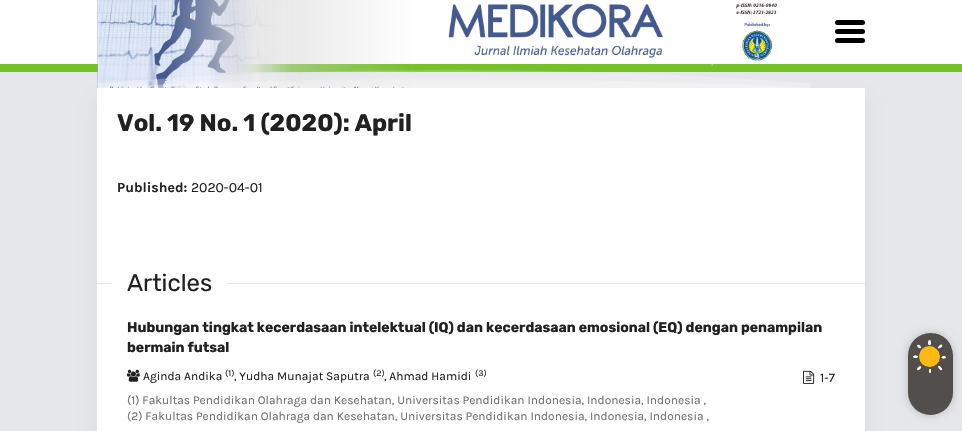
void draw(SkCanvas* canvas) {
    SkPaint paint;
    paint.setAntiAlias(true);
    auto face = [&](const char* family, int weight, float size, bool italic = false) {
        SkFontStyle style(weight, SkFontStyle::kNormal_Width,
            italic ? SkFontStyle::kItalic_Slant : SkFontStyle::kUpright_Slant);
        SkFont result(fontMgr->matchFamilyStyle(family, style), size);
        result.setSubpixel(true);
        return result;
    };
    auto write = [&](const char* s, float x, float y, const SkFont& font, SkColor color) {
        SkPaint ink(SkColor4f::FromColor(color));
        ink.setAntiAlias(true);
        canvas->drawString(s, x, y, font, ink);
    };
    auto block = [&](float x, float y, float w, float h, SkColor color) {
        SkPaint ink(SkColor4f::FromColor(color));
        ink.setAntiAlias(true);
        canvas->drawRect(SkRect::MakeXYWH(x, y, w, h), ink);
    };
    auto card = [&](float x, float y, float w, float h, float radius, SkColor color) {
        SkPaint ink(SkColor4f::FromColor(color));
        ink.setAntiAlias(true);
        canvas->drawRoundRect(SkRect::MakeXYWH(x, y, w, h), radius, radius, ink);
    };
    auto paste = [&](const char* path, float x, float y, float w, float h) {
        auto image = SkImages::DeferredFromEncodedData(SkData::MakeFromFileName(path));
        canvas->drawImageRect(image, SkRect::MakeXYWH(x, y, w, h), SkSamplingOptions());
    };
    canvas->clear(SkColorSetRGB(229, 231, 235));
    block(0, 0, 962, 64, SK_ColorWHITE);
    block(0, 64, 962, 8, SkColorSetRGB(116, 194, 39));
    paste("pic1.png", 97, 0, 714, 88);
    card(835, 20, 30, 5, 2.5f, SK_ColorBLACK);
    card(835, 29, 30, 5, 2.5f, SK_ColorBLACK);
    card(835, 38, 30, 5, 2.5f, SK_ColorBLACK);
    paint.setColor(SkColorSetARGB(26, 0, 0, 0));
    paint.setMaskFilter(SkMaskFilter::MakeBlur(kNormal_SkBlurStyle, 7.5f));
    canvas->drawRect(SkRect::MakeXYWH(100, 101, 762, 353), paint);
    paint.setMaskFilter(nullptr);
    block(97, 88, 768, 343, SK_ColorWHITE);
    auto kFont1 = face("Rubik", 700, 24);
    write("Vol. 19 No. 1 (2020): April", 117, 131, kFont1, SkColorSetRGB(33, 33, 33));
    auto kFont2 = face("Karla", 700, 14);
    write("Published:", 117, 192, kFont2, SkColorSetRGB(33, 33, 33));
    auto kFont3 = face("Karla", 400, 14);
    write("2020-04-01", 191, 192, kFont3, SkColorSetRGB(33, 33, 33));
    block(97, 283, 768, 1, SkColorSetRGB(229, 231, 235));
    block(112, 283, 115, 1, SK_ColorWHITE);
    auto kFont4 = face("Rubik", 400, 24);
    write("Articles", 127, 291, kFont4, SkColorSetRGB(33, 33, 33));
    auto kFont5 = face("Rubik", 700, 14);
    write("Hubungan tingkat kecerdasaan intelektual (IQ) dan kecerdasaan emosional (EQ) dengan penampilan", 127, 332, kFont5, SkColorSetRGB(33, 33, 33));
    write("bermain futsal", 127, 352, kFont5, SkColorSetRGB(33, 33, 33));
    paste("pic2.png", 127, 369, 13, 13);
    auto kFont6 = face("Karla", 400, 12);
    write("Aginda Andika", 143, 380, kFont6, SkColorSetRGB(33, 33, 33));
    auto kFont7 = face("Karla", 400, 9);
    write("(1)", 225, 376, kFont7, SkColorSetRGB(33, 33, 33));
    write(", Yudha Munajat Saputra", 234, 380, kFont6, SkColorSetRGB(33, 33, 33));
    write("(2)", 373, 376, kFont7, SkColorSetRGB(33, 33, 33));
    write(", Ahmad Hamidi", 384, 380, kFont6, SkColorSetRGB(33, 33, 33));
    write("(3)", 475, 376, kFont7, SkColorSetRGB(33, 33, 33));
    write("(1) Fakultas Pendidikan Olahraga dan Kesehatan, Universitas Pendidikan Indonesia, Indonesia, Indonesia ,", 127, 404, kFont6, SkColorSetRGB(112, 112, 112));
    write("(2) Fakultas Pendidikan Olahraga dan Kesehatan, Universitas Pendidikan Indonesia, Indonesia, Indonesia ,", 127, 420, kFont6, SkColorSetRGB(112, 112, 112));
    paste("pic3.png", 803, 370, 12, 14);
    auto kFont8 = face("Karla", 400, 13);
    write("1-7", 820, 382, kFont8, SkColorSetRGB(33, 33, 33));
    paint.setColor(SkColorSetARGB(51, 0, 0, 0));
    paint.setMaskFilter(SkMaskFilter::MakeBlur(kNormal_SkBlurStyle, 4));
    canvas->drawRoundRect(SkRect::MakeXYWH(908, 333, 45, 82), 22.5f, 22.5f, paint);
    paint.setMaskFilter(nullptr);
    card(908, 333, 45, 82, 22.5f, SkColorSetRGB(81, 78, 75));
    paint.setColor(SkColorSetRGB(253, 184, 19));
    canvas->drawCircle(929.5f, 356.5f, 10.5f, paint);
    canvas->save();
    canvas->clipPath(SkPathBuilder().moveTo(930.5f, 333).cubicTo(943, 333, 953, 343, 953, 355.5f).lineTo(953, 392.5f).cubicTo(953, 405, 943, 415, 930.5f, 415).cubicTo(918, 415, 908, 405, 908, 392.5f).lineTo(908, 355.5f).cubicTo(908, 343, 918, 333, 930.5f, 333).close().detach(), true);
    paint.setColor(SkColorSetRGB(81, 78, 75));
    canvas->drawCircle(942.5f, 340.5f, 10.5f, paint);
    canvas->restore();
    card(928, 340, 3, 5, 1.5f, SK_ColorWHITE);
    card(929, 369, 2, 4, 1, SK_ColorWHITE);
    paint.setColor(SK_ColorWHITE);
    canvas->drawPath(SkPathBuilder().moveTo(946, 357.5f).cubicTo(946, 359, 941.5f, 359, 941.5f, 357.5f).cubicTo(941.5f, 355.5f, 946, 355.5f, 946, 357.5f).close().moveTo(918, 356.5f).cubicTo(918, 358, 916.5f, 358, 915.5f, 358).cubicTo(914.5f, 358, 913, 358, 913, 356.5f).cubicTo(913, 355.5f, 914.5f, 355.5f, 915.5f, 355.5f).cubicTo(916.5f, 355.5f, 918, 355.5f, 918, 356.5f).close().moveTo(921, 366.5f).cubicTo(922, 367.5f, 919, 371, 917.5f, 370).cubicTo(916, 368.5f, 919.5f, 365, 921, 366.5f).close().detach(), paint);
    canvas->drawPath(SkPathBuilder().moveTo(938.5f, 366).cubicTo(939.5f, 365.5f, 940.5f, 366.5f, 941, 367.5f).cubicTo(941.5f, 368, 943, 369, 941.5f, 370).cubicTo(940.5f, 371, 940, 369.5f, 939.5f, 369).cubicTo(938.5f, 368, 937.5f, 367, 938.5f, 366).close().moveTo(921, 348).cubicTo(919.5f, 349.5f, 916, 346, 917.5f, 345).cubicTo(919, 343.5f, 922, 347, 921, 348).close().detach(), paint);
    canvas->drawPath(SkPathBuilder().moveTo(938, 348).cubicTo(937.5f, 347, 939, 346, 939.5f, 345.5f).cubicTo(940.5f, 345, 941.5f, 344, 942, 345).cubicTo(943, 346, 941.5f, 347, 941, 347.5f).cubicTo(940, 348, 939, 349, 938, 348).close().detach(), paint);
}
